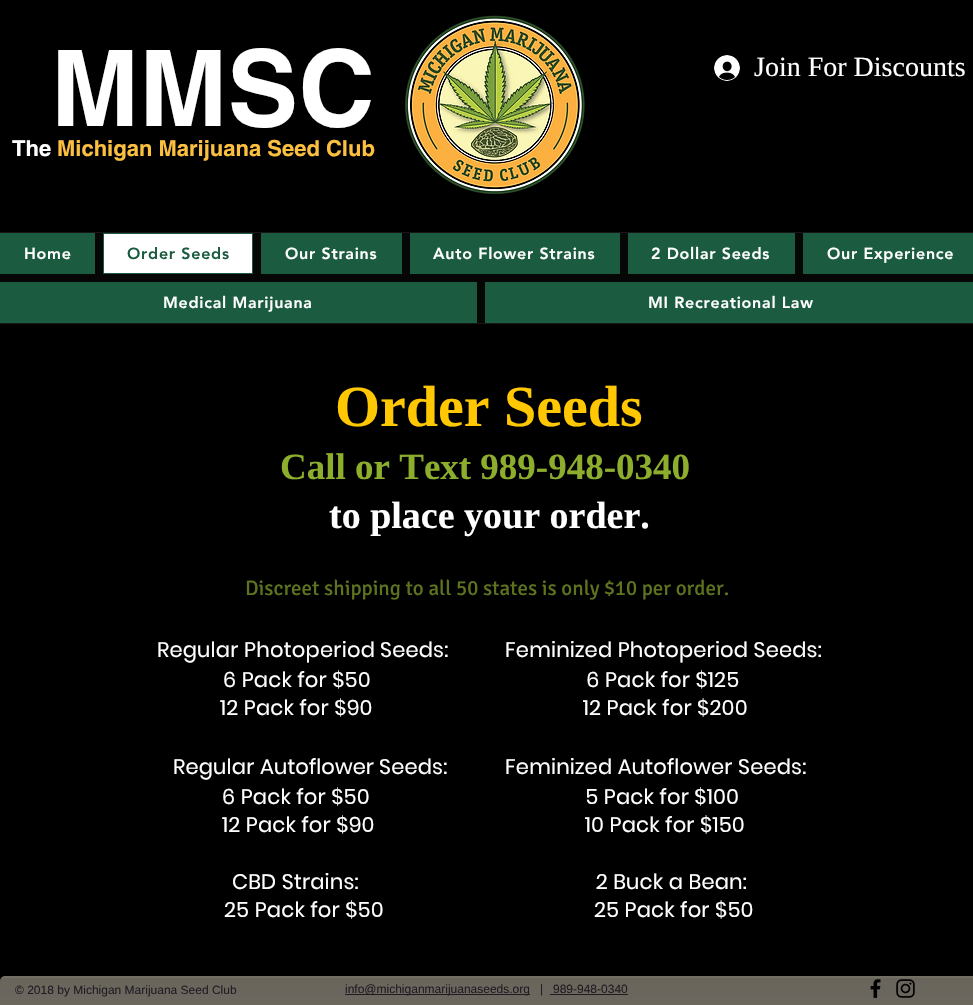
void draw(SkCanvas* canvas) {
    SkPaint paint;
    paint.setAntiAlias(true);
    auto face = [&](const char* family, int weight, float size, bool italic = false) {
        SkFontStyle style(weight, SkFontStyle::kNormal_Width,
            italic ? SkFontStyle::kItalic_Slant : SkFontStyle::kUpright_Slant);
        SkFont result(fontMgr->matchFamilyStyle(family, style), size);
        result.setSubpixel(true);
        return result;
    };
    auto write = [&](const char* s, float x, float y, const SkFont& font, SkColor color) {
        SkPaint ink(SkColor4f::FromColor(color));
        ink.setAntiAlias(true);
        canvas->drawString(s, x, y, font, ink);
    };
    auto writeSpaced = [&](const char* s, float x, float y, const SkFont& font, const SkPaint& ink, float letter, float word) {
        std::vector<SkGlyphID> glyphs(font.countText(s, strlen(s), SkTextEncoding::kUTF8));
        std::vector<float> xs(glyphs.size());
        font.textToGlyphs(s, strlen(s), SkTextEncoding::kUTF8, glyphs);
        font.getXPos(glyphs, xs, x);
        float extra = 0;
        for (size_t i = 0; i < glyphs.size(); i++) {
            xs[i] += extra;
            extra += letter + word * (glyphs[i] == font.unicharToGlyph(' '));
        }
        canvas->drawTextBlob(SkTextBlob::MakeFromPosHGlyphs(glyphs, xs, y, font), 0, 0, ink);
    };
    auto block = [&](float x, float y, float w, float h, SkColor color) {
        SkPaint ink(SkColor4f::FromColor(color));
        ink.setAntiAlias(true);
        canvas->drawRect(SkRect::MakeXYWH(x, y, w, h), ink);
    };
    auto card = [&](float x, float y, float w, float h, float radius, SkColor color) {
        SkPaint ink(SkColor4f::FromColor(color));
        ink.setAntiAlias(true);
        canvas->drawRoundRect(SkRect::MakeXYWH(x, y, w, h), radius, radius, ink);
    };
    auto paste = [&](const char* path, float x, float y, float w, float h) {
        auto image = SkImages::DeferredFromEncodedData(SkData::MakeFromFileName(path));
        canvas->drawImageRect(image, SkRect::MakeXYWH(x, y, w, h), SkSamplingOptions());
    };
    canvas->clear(SK_ColorBLACK);
    auto kFont1 = face("helvetica", 700, 106);
    write("MMSC", 51, 126, kFont1, SK_ColorWHITE);
    auto kFont2 = face("helvetica", 700, 22);
    write("The", 12, 156, kFont2, SK_ColorWHITE);
    write("Michigan Marijuana Seed Club", 57, 156, kFont2, SkColorSetRGB(251, 192, 63));
    paste("pic1.png", 405, 15, 180, 179);
    paste("pic2.png", 714, 55, 26, 26);
    auto kFont3 = face("Liberation Serif", 400, 28);
    write("Join For Discounts", 754, 76, kFont3, SK_ColorWHITE);
    paint.setColor(SkColorSetRGB(7, 6, 7));
    canvas->drawRect(SkRect::MakeXYWH(-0.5f, 232.5f, 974, 91), paint);
    paint.setStyle(SkPaint::kStroke_Style);
    paint.setStrokeWidth(1);
    paint.setColor(SkColorSetRGB(25, 22, 25));
    canvas->drawRect(SkRect::MakeXYWH(-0.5f, 232.5f, 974, 91), paint);
    block(0, 233, 95, 41, SkColorSetRGB(27, 91, 63));
    auto kFont4 = face("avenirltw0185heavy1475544", 900, 16);
    paint.setStyle(SkPaint::kFill_Style);
    paint.setColor(SK_ColorWHITE);
    writeSpaced("Home", 24, 259, kFont4, paint, 0.75f, 0);
    canvas->drawRect(SkRect::MakeXYWH(103.5f, 233.5f, 149, 40), paint);
    paint.setStyle(SkPaint::kStroke_Style);
    paint.setColor(SkColorSetRGB(27, 91, 63));
    canvas->drawRect(SkRect::MakeXYWH(103.5f, 233.5f, 149, 40), paint);
    paint.setStyle(SkPaint::kFill_Style);
    writeSpaced("Order Seeds", 127, 259, kFont4, paint, 0.75f, 0);
    block(261, 233, 141, 41, SkColorSetRGB(27, 91, 63));
    paint.setColor(SK_ColorWHITE);
    writeSpaced("Our Strains", 285, 259, kFont4, paint, 0.75f, 0);
    block(410, 233, 210, 41, SkColorSetRGB(27, 91, 63));
    writeSpaced("Auto Flower Strains", 433, 259, kFont4, paint, 0.75f, 0);
    block(628, 233, 167, 41, SkColorSetRGB(27, 91, 63));
    writeSpaced("2 Dollar Seeds", 651, 259, kFont4, paint, 0.75f, 0);
    block(803, 233, 170, 41, SkColorSetRGB(27, 91, 63));
    writeSpaced("Our Experience", 827, 259, kFont4, paint, 0.75f, 0);
    block(0, 282, 477, 41, SkColorSetRGB(27, 91, 63));
    writeSpaced("Medical Marijuana", 163, 308, kFont4, paint, 0.75f, 0);
    block(485, 282, 488, 41, SkColorSetRGB(27, 91, 63));
    writeSpaced("MI Recreational Law", 648, 308, kFont4, paint, 0.75f, 0);
    auto kFont5 = face("Liberation Serif", 700, 58);
    write("Order Seeds", 335, 426, kFont5, SkColorSetRGB(255, 200, 2));
    auto kFont6 = face("Liberation Serif", 700, 37);
    write("Call or Text 989-948-0340", 280, 479, kFont6, SkColorSetRGB(141, 173, 45));
    auto kFont7 = face("Liberation Serif", 700, 38);
    write("to place your order.", 329, 528, kFont7, SK_ColorWHITE);
    auto kFont8 = face("Signika", 400, 21);
    write("Discreet shipping to all 50 states is only $10 per order.", 245, 595, kFont8, SkColorSetRGB(94, 115, 30));
    auto kFont9 = face("Poppins", 400, 21);
    writeSpaced("Regular", 157, 657, kFont9, paint, 0.2f, 0);
    writeSpaced("Photoperiod", 244, 657, kFont9, paint, 0.25f, 0);
    writeSpaced("Seeds:", 380, 657, kFont9, paint, 0.2f, 0);
    writeSpaced("Feminized Photoperiod Seeds:", 505, 657, kFont9, paint, 0.2f, 0);
    writeSpaced("6 Pack for $50                                        6 Pack for $125", 223, 687, kFont9, paint, 0.2f, 0);
    writeSpaced("12 Pack for $90                                       12 Pack for $200", 220, 715, kFont9, paint, 0.2f, 0);
    writeSpaced("Regular", 173, 774, kFont9, paint, 0.2f, 0);
    writeSpaced("Autoflower", 260, 774, kFont9, paint, 0.1f, 0);
    writeSpaced("Seeds:", 379, 774, kFont9, paint, 0.2f, 0);
    writeSpaced("Feminized Autoflower Seeds:", 505, 774, kFont9, paint, 0.2f, 0);
    writeSpaced("6 Pack for $50                                        5 Pack for $100", 222, 804, kFont9, paint, 0.2f, 0);
    writeSpaced("12 Pack for $90                                       10 Pack for $150", 222, 832, kFont9, paint, 0.2f, 0);
    writeSpaced("CBD Strains:                                            2 Buck a Bean:", 232, 889, kFont9, paint, 0.2f, 0);
    writeSpaced("25 Pack for $50                                       25 Pack for $50", 224, 917, kFont9, paint, 0.2f, 0);
    card(0, 976, 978, 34, 5, SkColorSetRGB(115, 111, 101));
    paste("pic3.png", 0, 978, 973, 27);
    auto kFont10 = face("Liberation Sans", 400, 12);
    write("© 2018 by Michigan Marijuana Seed Club", 15, 994, kFont10, SkColorSetRGB(34, 27, 35));
    block(345, 994, 185, 1, SkColorSetRGB(34, 27, 35));
    write("info@michiganmarijuanaseeds.org", 345, 993, kFont10, SkColorSetRGB(34, 27, 35));
    write("|", 540, 993, kFont10, SkColorSetRGB(34, 27, 35));
    write("989-948-0340", 553, 993, kFont10, SkColorSetRGB(34, 27, 35));
    block(550, 994, 78, 1, SkColorSetRGB(34, 27, 35));
    paste("pic4.png", 870, 979, 11, 19);
    paste("pic5.png", 896, 979, 19, 19);
}
